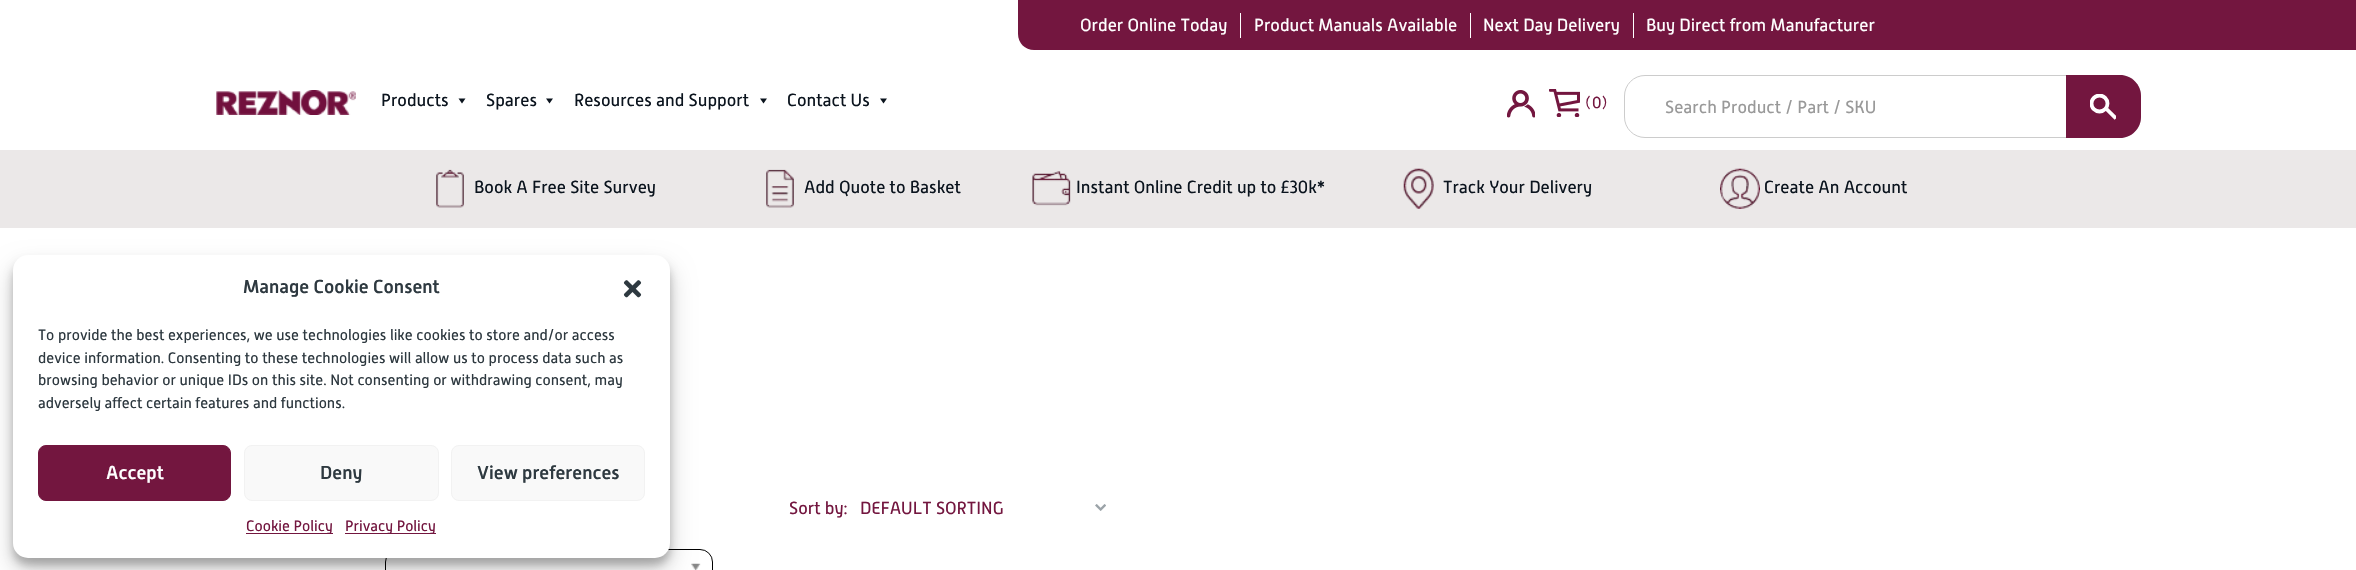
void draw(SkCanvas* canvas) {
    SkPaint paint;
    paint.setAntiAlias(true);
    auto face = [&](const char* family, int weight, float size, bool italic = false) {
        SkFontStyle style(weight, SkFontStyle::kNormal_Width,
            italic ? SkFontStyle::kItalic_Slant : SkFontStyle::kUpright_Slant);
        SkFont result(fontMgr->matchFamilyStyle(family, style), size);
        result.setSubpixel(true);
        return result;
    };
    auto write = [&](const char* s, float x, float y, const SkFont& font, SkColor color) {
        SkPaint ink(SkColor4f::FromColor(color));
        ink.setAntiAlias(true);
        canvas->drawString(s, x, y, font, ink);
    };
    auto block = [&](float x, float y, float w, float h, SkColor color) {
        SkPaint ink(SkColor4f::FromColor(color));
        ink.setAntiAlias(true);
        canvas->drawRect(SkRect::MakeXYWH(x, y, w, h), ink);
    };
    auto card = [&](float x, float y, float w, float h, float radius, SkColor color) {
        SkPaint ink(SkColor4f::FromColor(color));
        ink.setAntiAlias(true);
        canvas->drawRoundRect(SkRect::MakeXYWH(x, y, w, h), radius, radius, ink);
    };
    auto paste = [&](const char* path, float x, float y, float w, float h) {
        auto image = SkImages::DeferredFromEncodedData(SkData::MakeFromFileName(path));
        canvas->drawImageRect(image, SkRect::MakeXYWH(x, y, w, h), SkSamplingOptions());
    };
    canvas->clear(SK_ColorWHITE);
    block(2141, 0, 215, 50, SkColorSetRGB(115, 22, 63));
    paint.setColor(SkColorSetRGB(115, 22, 63));
    canvas->drawPath(SkPathBuilder().moveTo(1018, 0).lineTo(2141, 0).lineTo(2141, 50).lineTo(1034, 50).cubicTo(1025, 50, 1018, 43, 1018, 34).close().detach(), paint);
    block(1240, 13, 1, 25, SK_ColorWHITE);
    auto kFont1 = face("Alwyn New", 400, 17.5f);
    write("Order Online Today", 1080, 31, kFont1, SK_ColorWHITE);
    block(1470, 13, 1, 25, SK_ColorWHITE);
    write("Product Manuals Available", 1254, 31, kFont1, SK_ColorWHITE);
    block(1633, 13, 1, 25, SK_ColorWHITE);
    write("Next Day Delivery", 1483, 31, kFont1, SK_ColorWHITE);
    write("Buy Direct from Manufacturer", 1646, 31, kFont1, SK_ColorWHITE);
    paste("pic1.png", 216, 90, 140, 25);
    write("Products", 381, 106, kFont1, SkColorSetRGB(11, 20, 30));
    paint.setColor(SkColorSetRGB(11, 20, 30));
    canvas->drawPath(SkPathBuilder().moveTo(465.5f, 98.5f).lineTo(462, 103.5f).lineTo(458.5f, 98.5f).close().detach(), paint);
    write("Spares", 486, 106, kFont1, SkColorSetRGB(11, 20, 30));
    canvas->drawPath(SkPathBuilder().moveTo(553, 98.5f).lineTo(549.5f, 103.5f).lineTo(546, 98.5f).close().detach(), paint);
    write("Resources and Support", 574, 106, kFont1, SkColorSetRGB(11, 20, 30));
    canvas->drawPath(SkPathBuilder().moveTo(767, 98.5f).lineTo(763.5f, 103.5f).lineTo(760, 98.5f).close().detach(), paint);
    write("Contact Us", 787, 106, kFont1, SkColorSetRGB(11, 20, 30));
    canvas->drawPath(SkPathBuilder().moveTo(887, 98.5f).lineTo(883.5f, 103.5f).lineTo(880, 98.5f).close().detach(), paint);
    paste("pic2.png", 1507, 90, 28, 28);
    paste("pic3.png", 1549, 89, 31, 28);
    paint.setStyle(SkPaint::kStroke_Style);
    paint.setStrokeWidth(1.2f);
    paint.setColor(SkColorSetRGB(115, 22, 63));
    canvas->drawPath(SkPathBuilder().moveTo(1603, 96).cubicTo(1606.5f, 99.5f, 1606.5f, 105.5f, 1603, 109).detach(), paint);
    paint.setColor(SK_ColorWHITE);
    canvas->drawPath(SkPathBuilder().moveTo(1603, 109).cubicTo(1599.5f, 112.5f, 1593, 112.5f, 1589.5f, 109).detach(), paint);
    paint.setColor(SkColorSetRGB(115, 22, 63));
    canvas->drawPath(SkPathBuilder().moveTo(1589.5f, 109).cubicTo(1586, 105.5f, 1586, 99.5f, 1589.5f, 96).detach(), paint);
    auto kFont2 = face("Alwyn New", 400, 16);
    write("0", 1592, 108, kFont2, SkColorSetRGB(115, 22, 63));
    paint.setStrokeWidth(1);
    paint.setColor(SkColorSetRGB(204, 204, 204));
    canvas->drawRoundRect(SkRect::MakeXYWH(1624.5f, 75.5f, 516, 62), 20.5f, 20.5f, paint);
    write("Search Product / Part / SKU", 1665, 113, kFont1, SkColorSetRGB(153, 153, 153));
    paint.setStyle(SkPaint::kFill_Style);
    paint.setColor(SkColorSetRGB(115, 22, 63));
    canvas->drawPath(SkPathBuilder().moveTo(2066, 75).lineTo(2120, 75).cubicTo(2131.5f, 75, 2141, 84.5f, 2141, 96).lineTo(2141, 117).cubicTo(2141, 128.5f, 2131.5f, 138, 2120, 138).lineTo(2066, 138).close().detach(), paint);
    canvas->save();
    canvas->clipRect(SkRect::MakeXYWH(2090, 94, 26, 26));
    paint.setStyle(SkPaint::kStroke_Style);
    paint.setStrokeWidth(3.8f);
    paint.setColor(SK_ColorWHITE);
    canvas->drawCircle(2099.5f, 103.5f, 8, paint);
    canvas->drawPath(SkPathBuilder().moveTo(2106.5f, 109).lineTo(2116, 118.5f).detach(), paint);
    canvas->restore();
    block(0, 150, 2356, 78, SkColorSetRGB(235, 232, 232));
    paste("pic4.png", 436, 169, 28, 39);
    write("Book A Free Site Survey", 474, 193, kFont1, SkColorSetRGB(11, 20, 30));
    paste("pic5.png", 766, 169, 28, 39);
    write("Add Quote to Basket", 804, 193, kFont1, SkColorSetRGB(11, 20, 30));
    paste("pic6.png", 1032, 171, 39, 35);
    write("Instant Online Credit up to £30k*", 1076, 193, kFont1, SkColorSetRGB(11, 20, 30));
    paste("pic7.png", 1403, 168, 31, 41);
    write("Track Your Delivery", 1443, 193, kFont1, SkColorSetRGB(11, 20, 30));
    paste("pic8.png", 1720, 168, 40, 41);
    write("Create An Account", 1764, 193, kFont1, SkColorSetRGB(11, 20, 30));
    paint.setStrokeWidth(1);
    paint.setColor(SK_ColorBLACK);
    canvas->drawRoundRect(SkRect::MakeXYWH(385.5f, 549.5f, 327, 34), 12.5f, 12.5f, paint);
    paint.setStyle(SkPaint::kFill_Style);
    paint.setColor(SkColorSetARGB(59, 0, 0, 0));
    paint.setMaskFilter(SkMaskFilter::MakeBlur(kNormal_SkBlurStyle, 4));
    canvas->drawRoundRect(SkRect::MakeXYWH(13, 263, 657, 302), 15, 15, paint);
    paint.setMaskFilter(nullptr);
    paste("pic11.png", 691, 563, 10, 7);
    paint.setColor(SkColorSetARGB(48, 0, 0, 0));
    paint.setMaskFilter(SkMaskFilter::MakeBlur(kNormal_SkBlurStyle, 12.5f));
    canvas->drawRoundRect(SkRect::MakeXYWH(13, 268, 657, 302), 15, 15, paint);
    paint.setMaskFilter(nullptr);
    card(13, 255, 657, 303, 15, SK_ColorWHITE);
    auto kFont3 = face("Alwyn New", 500, 18.75f);
    write("Manage Cookie Consent", 243, 293, kFont3, SkColorSetRGB(46, 57, 64));
    paste("pic9.png", 623, 280, 19, 18);
    auto kFont4 = face("Alwyn New", 400, 15);
    write("To provide the best experiences, we use technologies like cookies to store and/or access", 38, 340, kFont4, SkColorSetRGB(46, 57, 64));
    write("device information. Consenting to these technologies will allow us to process data such as", 38, 363, kFont4, SkColorSetRGB(46, 57, 64));
    write("browsing behavior or unique IDs on this site. Not consenting or withdrawing consent, may", 38, 385, kFont4, SkColorSetRGB(46, 57, 64));
    write("adversely affect certain features and functions.", 38, 408, kFont4, SkColorSetRGB(46, 57, 64));
    paint.setColor(SkColorSetRGB(115, 22, 63));
    canvas->drawRoundRect(SkRect::MakeXYWH(38.5f, 445.5f, 192, 55), 7.5f, 7.5f, paint);
    paint.setStyle(SkPaint::kStroke_Style);
    canvas->drawRoundRect(SkRect::MakeXYWH(38.5f, 445.5f, 192, 55), 7.5f, 7.5f, paint);
    write("Accept", 106, 479, kFont3, SK_ColorWHITE);
    paint.setStyle(SkPaint::kFill_Style);
    paint.setColor(SkColorSetRGB(249, 249, 249));
    canvas->drawRoundRect(SkRect::MakeXYWH(244.5f, 445.5f, 194, 55), 7.5f, 7.5f, paint);
    paint.setStyle(SkPaint::kStroke_Style);
    paint.setColor(SkColorSetRGB(242, 242, 242));
    canvas->drawRoundRect(SkRect::MakeXYWH(244.5f, 445.5f, 194, 55), 7.5f, 7.5f, paint);
    write("Deny", 320, 479, kFont3, SkColorSetRGB(46, 57, 64));
    paint.setStyle(SkPaint::kFill_Style);
    paint.setColor(SkColorSetRGB(249, 249, 249));
    canvas->drawRoundRect(SkRect::MakeXYWH(451.5f, 445.5f, 193, 55), 7.5f, 7.5f, paint);
    paint.setStyle(SkPaint::kStroke_Style);
    paint.setColor(SkColorSetRGB(242, 242, 242));
    canvas->drawRoundRect(SkRect::MakeXYWH(451.5f, 445.5f, 193, 55), 7.5f, 7.5f, paint);
    write("View preferences", 477, 479, kFont3, SkColorSetRGB(46, 57, 64));
    block(246, 533, 87, 1, SkColorSetRGB(115, 22, 63));
    write("Cookie Policy", 246, 531, kFont4, SkColorSetRGB(115, 22, 63));
    block(345, 533, 91, 1, SkColorSetRGB(115, 22, 63));
    write("Privacy Policy", 345, 531, kFont4, SkColorSetRGB(115, 22, 63));
    write("Sort by:", 789, 514, kFont1, SkColorSetRGB(115, 22, 63));
    paste("pic10.png", 1095, 504, 11, 7);
    write("DEFAULT SORTING", 860, 514, kFont1, SkColorSetRGB(115, 22, 63));
}
